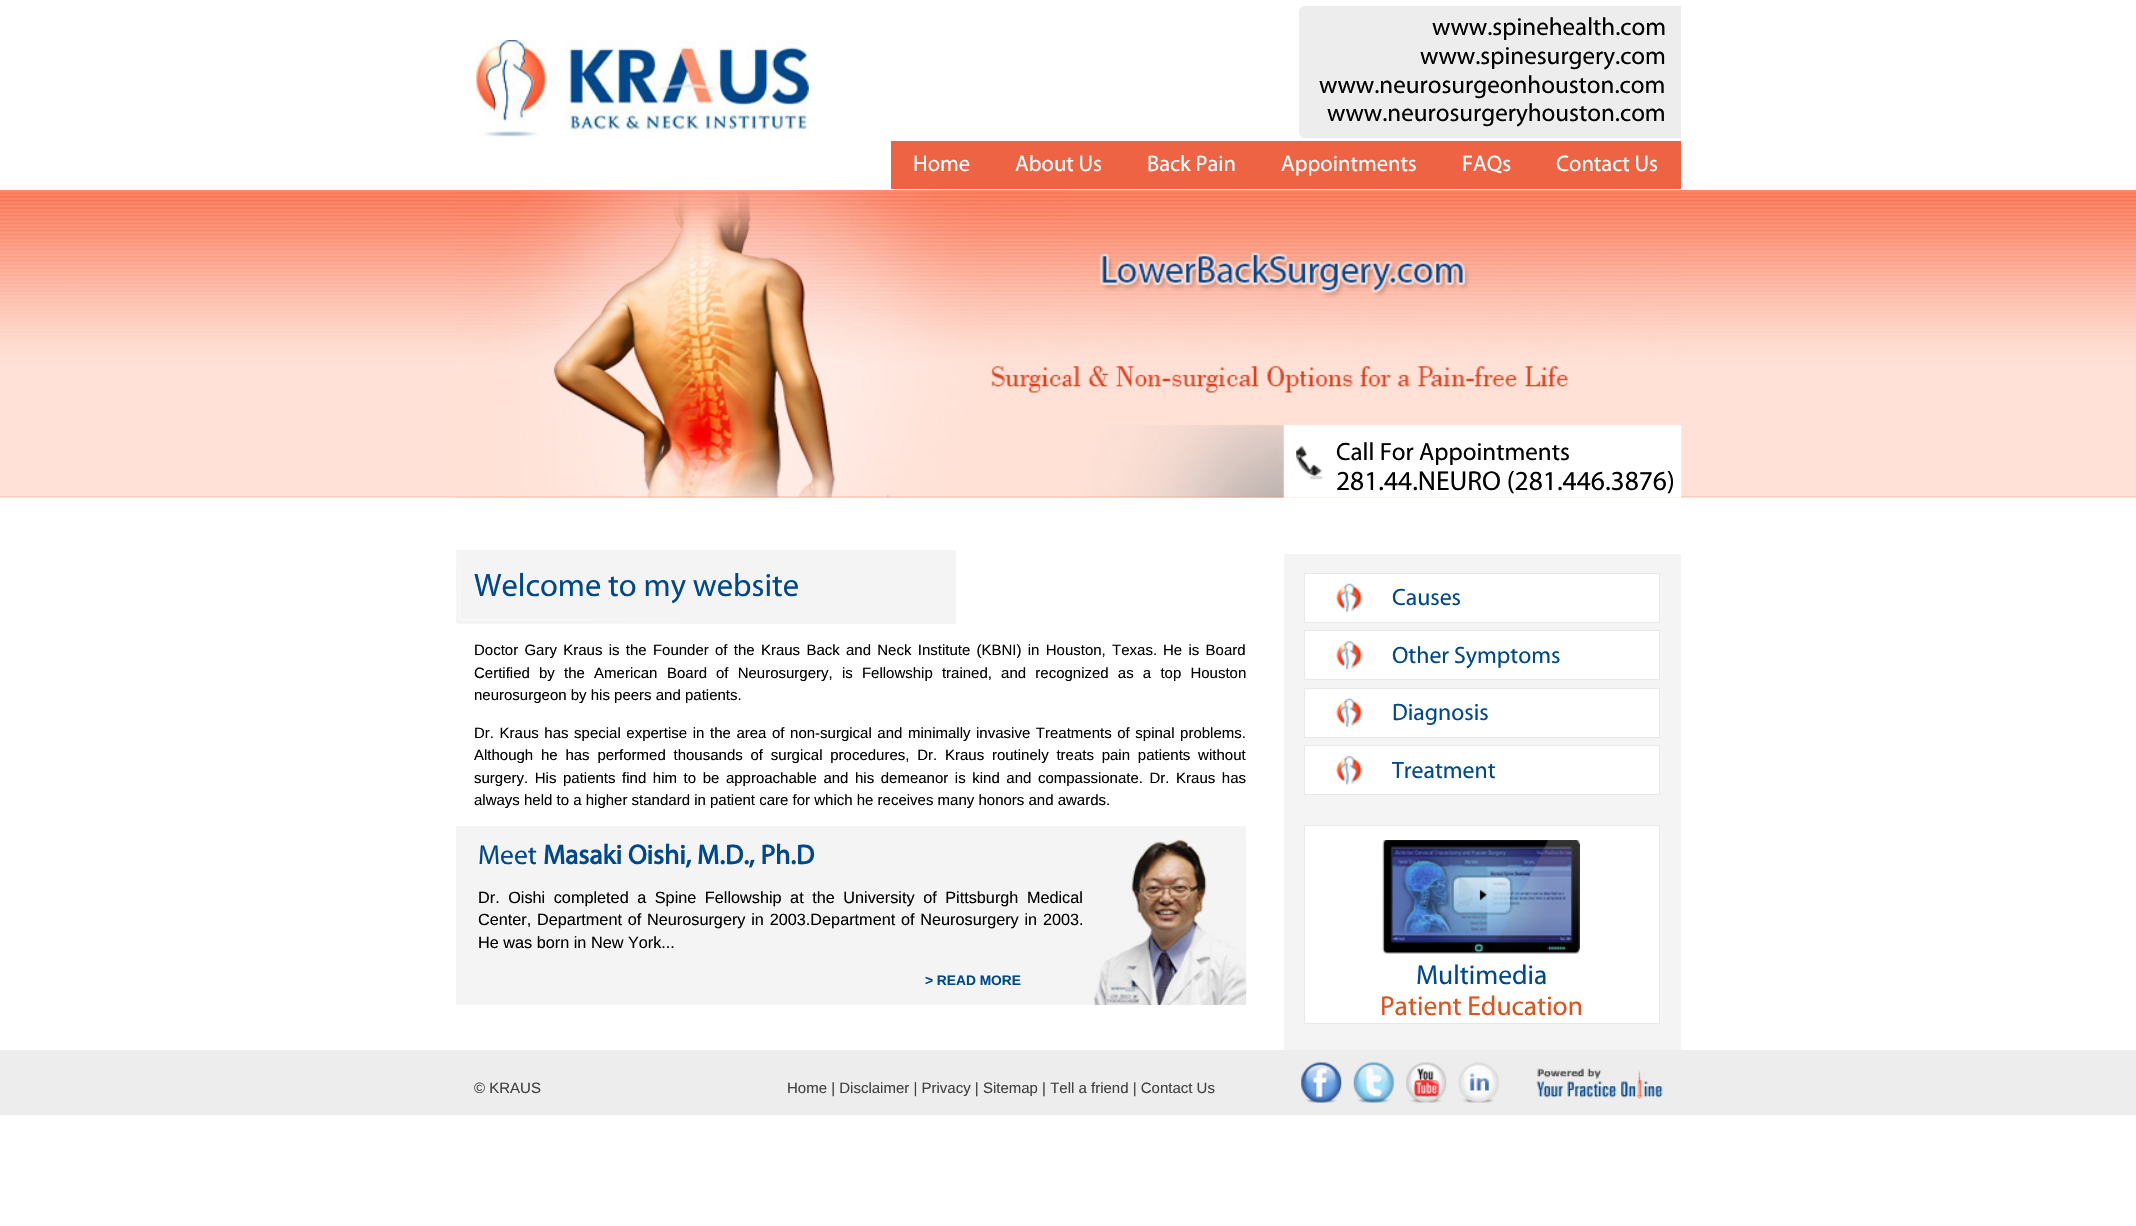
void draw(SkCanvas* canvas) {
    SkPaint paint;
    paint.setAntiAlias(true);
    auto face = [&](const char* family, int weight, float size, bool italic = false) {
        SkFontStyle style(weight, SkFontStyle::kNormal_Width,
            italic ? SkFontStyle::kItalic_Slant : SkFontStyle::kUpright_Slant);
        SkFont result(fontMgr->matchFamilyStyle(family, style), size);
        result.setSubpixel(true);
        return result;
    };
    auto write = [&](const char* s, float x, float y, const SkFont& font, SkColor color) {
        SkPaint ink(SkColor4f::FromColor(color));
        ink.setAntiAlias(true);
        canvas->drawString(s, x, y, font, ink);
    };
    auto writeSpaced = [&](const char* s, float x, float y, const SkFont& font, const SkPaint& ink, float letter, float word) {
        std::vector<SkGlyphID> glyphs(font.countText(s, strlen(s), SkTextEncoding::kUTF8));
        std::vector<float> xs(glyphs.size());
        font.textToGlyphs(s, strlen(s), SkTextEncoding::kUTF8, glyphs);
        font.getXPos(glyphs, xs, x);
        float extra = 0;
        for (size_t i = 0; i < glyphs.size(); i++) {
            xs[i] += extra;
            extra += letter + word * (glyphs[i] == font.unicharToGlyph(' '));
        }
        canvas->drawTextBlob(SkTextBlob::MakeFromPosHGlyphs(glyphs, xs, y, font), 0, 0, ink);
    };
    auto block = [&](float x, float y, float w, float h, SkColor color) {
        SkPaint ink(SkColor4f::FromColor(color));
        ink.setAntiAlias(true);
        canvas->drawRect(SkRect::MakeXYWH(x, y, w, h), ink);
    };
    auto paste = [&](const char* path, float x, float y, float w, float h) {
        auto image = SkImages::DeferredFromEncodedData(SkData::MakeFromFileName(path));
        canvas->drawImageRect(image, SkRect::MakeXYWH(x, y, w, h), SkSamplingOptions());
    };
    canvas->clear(SK_ColorWHITE);
    paste("pic1.png", 0, 190, 2136, 308);
    paste("pic2.png", 476, 40, 333, 97);
    paint.setColor(SkColorSetRGB(237, 237, 237));
    canvas->drawPath(SkPathBuilder().moveTo(1305, 6).lineTo(1681, 6).lineTo(1681, 138).lineTo(1305, 138).cubicTo(1301.5f, 138, 1299, 135.5f, 1299, 132).lineTo(1299, 12).cubicTo(1299, 8.5f, 1301.5f, 6, 1305, 6).close().detach(), paint);
    auto kFont1 = face("Myriad", 400, 25);
    write("www.spinehealth.com", 1432, 35, kFont1, SK_ColorBLACK);
    write("www.spinesurgery.com", 1420, 64, kFont1, SK_ColorBLACK);
    write("www.neurosurgeonhouston.com", 1319, 93, kFont1, SK_ColorBLACK);
    write("www.neurosurgeryhouston.com", 1327, 121, kFont1, SK_ColorBLACK);
    block(891, 141, 790, 48, SkColorSetRGB(238, 99, 68));
    auto kFont2 = face("Myriad", 400, 22.5f);
    write("Home", 913, 171, kFont2, SK_ColorWHITE);
    write("About Us", 1015, 171, kFont2, SK_ColorWHITE);
    write("Back Pain", 1147, 171, kFont2, SK_ColorWHITE);
    write("Appointments", 1281, 171, kFont2, SK_ColorWHITE);
    write("FAQs", 1462, 171, kFont2, SK_ColorWHITE);
    write("Contact Us", 1556, 171, kFont2, SK_ColorWHITE);
    paste("pic3.png", 456, 190, 614, 308);
    paste("pic4.png", 1068, 252, 614, 246);
    paste("pic5.png", 456, 550, 500, 74);
    auto kFont3 = face("Myriad", 400, 32.5f);
    write("Welcome to my website", 474, 596, kFont3, SkColorSetRGB(0, 72, 140));
    auto kFont4 = face("Liberation Sans", 400, 15);
    paint.setColor(SK_ColorBLACK);
    writeSpaced("Doctor Gary Kraus is the Founder of the Kraus Back and Neck Institute (KBNI) in Houston, Texas.", 474, 655, kFont4, paint, 0, 2.1f);
    writeSpaced("He is Board", 1163, 655, kFont4, paint, 0, 2.1f);
    writeSpaced("Certified by the American", 474, 678, kFont4, paint, 0, 5);
    write("Board", 667, 678, kFont4, SK_ColorBLACK);
    writeSpaced("of Neurosurgery, is Fellowship trained, and recognized as a top Houston", 716, 678, kFont4, paint, 0, 5);
    write("neurosurgeon by his peers and patients.", 474, 700, kFont4, SK_ColorBLACK);
    writeSpaced("Dr. Kraus has special expertise in the area of non-surgical and minimally invasive Treatments of spinal problems.", 474, 738, kFont4, paint, 0, 1.4f);
    writeSpaced("Although he has performed thousands of surgical procedures, Dr. Kraus routinely treats pain patients without", 474, 760, kFont4, paint, 0, 3.6f);
    writeSpaced("surgery. His patients find him to be approachable and his demeanor is kind and compassionate. Dr. Kraus has", 474, 783, kFont4, paint, 0, 2.4f);
    write("always held to a higher standard in patient care for which he receives many honors and awards.", 474, 805, kFont4, SK_ColorBLACK);
    block(456, 826, 790, 179, SkColorSetRGB(244, 244, 244));
    paste("pic6.png", 1093, 839, 154, 166);
    auto kFont5 = face("Myriad", 400, 27.5f);
    write("Meet", 478, 864, kFont5, SkColorSetRGB(0, 72, 140));
    auto kFont6 = face("Myriad", 700, 27.5f);
    write("Masaki Oishi, M.D., Ph.D", 543, 864, kFont6, SkColorSetRGB(0, 72, 140));
    auto kFont7 = face("Liberation Sans", 400, 16.25f);
    writeSpaced("Dr. Oishi completed a Spine Fellowship at the University of Pittsburgh Medical", 478, 903, kFont7, paint, 0, 4);
    writeSpaced("Center, Department of Neurosurgery in 2003.Department of Neurosurgery in 2003.", 478, 925, kFont7, paint, 0, 1.25f);
    write("He was born in New York...", 478, 948, kFont7, SK_ColorBLACK);
    auto kFont8 = face("Liberation Sans", 700, 13.75f);
    write("> READ MORE", 925, 985, kFont8, SkColorSetRGB(0, 72, 140));
    paste("pic7.png", 1296, 445, 28, 35);
    write("Call For Appointments", 1336, 460, kFont1, SK_ColorBLACK);
    write("281.44.NEURO (281.446.3876)", 1336, 490, kFont5, SK_ColorBLACK);
    block(1284, 554, 397, 496, SkColorSetRGB(244, 244, 244));
    block(1305, 574, 354, 48, SK_ColorWHITE);
    paste("pic8.png", 1336, 583, 26, 30);
    paint.setStyle(SkPaint::kStroke_Style);
    paint.setStrokeWidth(1);
    paint.setColor(SkColorSetRGB(232, 232, 232));
    canvas->drawRect(SkRect::MakeXYWH(1304.5f, 573.5f, 355, 49), paint);
    auto kFont9 = face("Myriad", 400, 23.75f);
    write("Causes", 1392, 605, kFont9, SkColorSetRGB(0, 72, 140));
    block(1305, 631, 354, 48, SK_ColorWHITE);
    paste("pic9.png", 1336, 641, 26, 29);
    canvas->drawRect(SkRect::MakeXYWH(1304.5f, 630.5f, 355, 49), paint);
    write("Other Symptoms", 1392, 663, kFont9, SkColorSetRGB(0, 72, 140));
    block(1305, 689, 354, 48, SK_ColorWHITE);
    paste("pic10.png", 1336, 698, 26, 30);
    canvas->drawRect(SkRect::MakeXYWH(1304.5f, 688.5f, 355, 49), paint);
    write("Diagnosis", 1392, 720, kFont9, SkColorSetRGB(0, 72, 140));
    block(1305, 746, 354, 48, SK_ColorWHITE);
    paste("pic9.png", 1336, 756, 26, 29);
    canvas->drawRect(SkRect::MakeXYWH(1304.5f, 745.5f, 355, 49), paint);
    write("Treatment", 1392, 778, kFont9, SkColorSetRGB(0, 72, 140));
    paint.setStyle(SkPaint::kFill_Style);
    paint.setColor(SK_ColorWHITE);
    canvas->drawRect(SkRect::MakeXYWH(1304.5f, 825.5f, 355, 198), paint);
    paint.setStyle(SkPaint::kStroke_Style);
    paint.setColor(SkColorSetRGB(232, 232, 232));
    canvas->drawRect(SkRect::MakeXYWH(1304.5f, 825.5f, 355, 198), paint);
    paste("pic11.png", 1382, 840, 198, 114);
    write("Multimedia", 1416, 984, kFont5, SkColorSetRGB(0, 72, 140));
    write("Patient Education", 1380, 1015, kFont5, SkColorSetRGB(222, 82, 29));
    block(0, 1050, 2136, 65, SkColorSetRGB(237, 237, 237));
    write("© KRAUS", 474, 1093, kFont4, SkColorSetRGB(64, 64, 64));
    write("Home | Disclaimer | Privacy | Sitemap | Tell a friend | Contact Us", 787, 1093, kFont4, SkColorSetRGB(64, 64, 64));
    paste("pic12.png", 1301, 1062, 41, 41);
    paste("pic13.png", 1353, 1062, 41, 41);
    paste("pic14.png", 1406, 1062, 41, 41);
    paste("pic15.png", 1458, 1062, 41, 41);
    paste("pic16.png", 1536, 1068, 127, 31);
}
